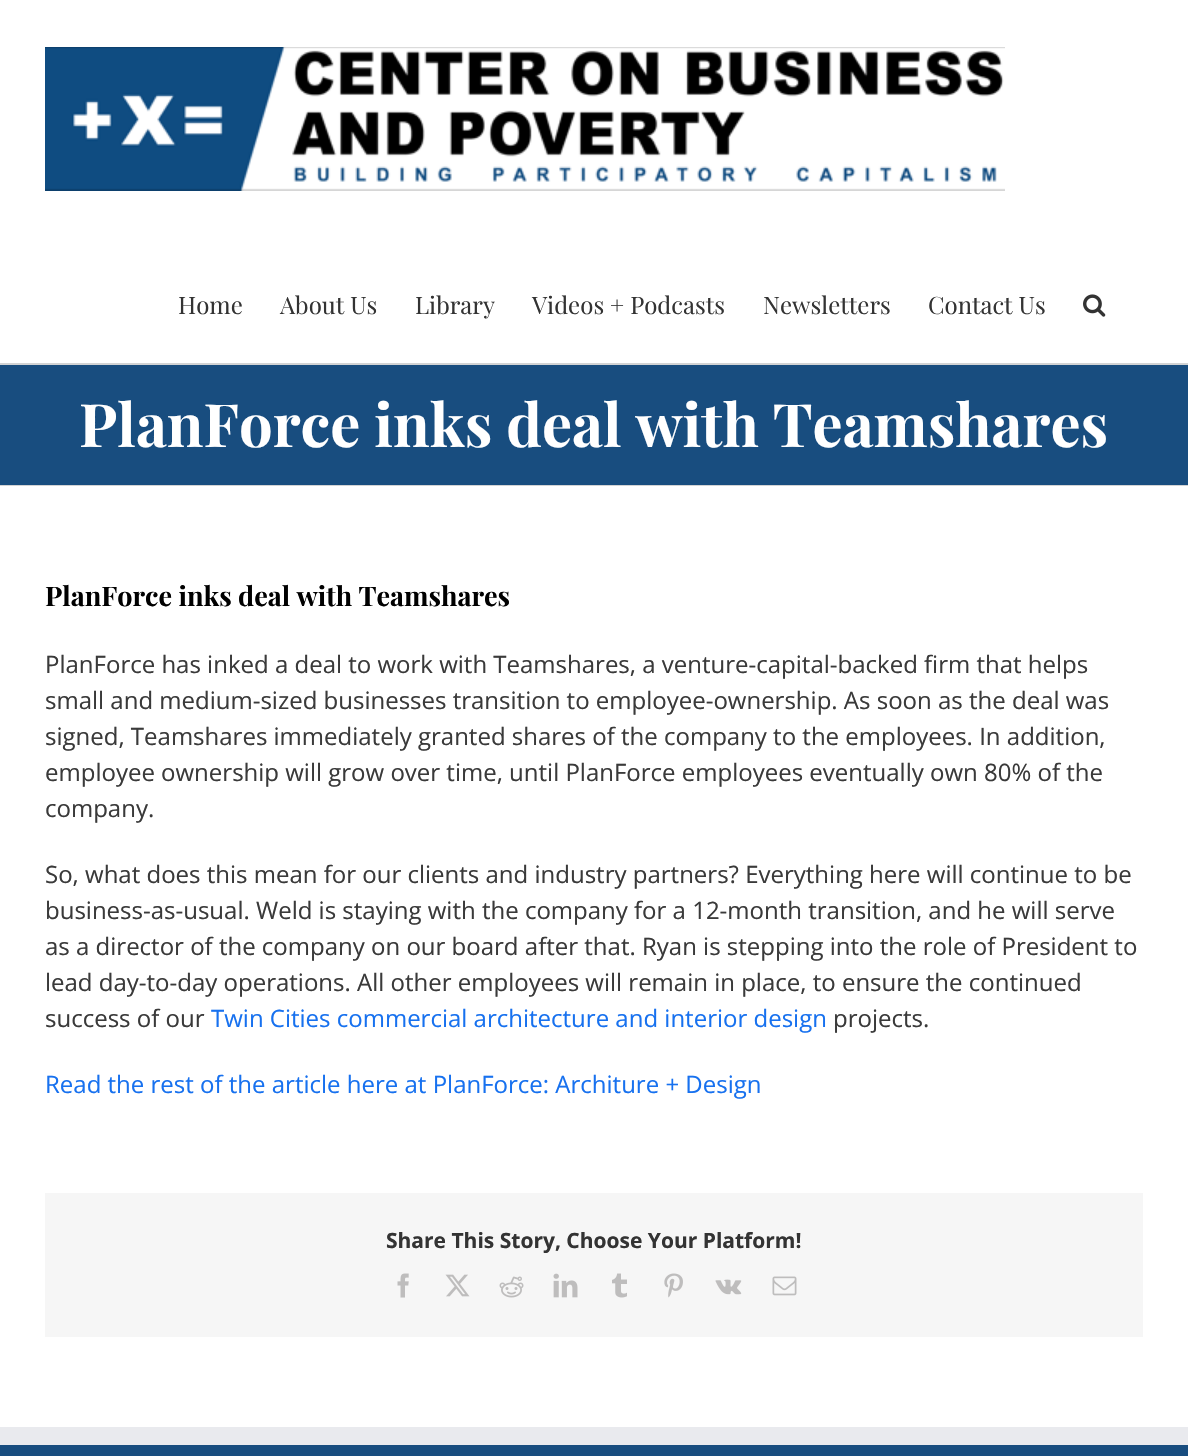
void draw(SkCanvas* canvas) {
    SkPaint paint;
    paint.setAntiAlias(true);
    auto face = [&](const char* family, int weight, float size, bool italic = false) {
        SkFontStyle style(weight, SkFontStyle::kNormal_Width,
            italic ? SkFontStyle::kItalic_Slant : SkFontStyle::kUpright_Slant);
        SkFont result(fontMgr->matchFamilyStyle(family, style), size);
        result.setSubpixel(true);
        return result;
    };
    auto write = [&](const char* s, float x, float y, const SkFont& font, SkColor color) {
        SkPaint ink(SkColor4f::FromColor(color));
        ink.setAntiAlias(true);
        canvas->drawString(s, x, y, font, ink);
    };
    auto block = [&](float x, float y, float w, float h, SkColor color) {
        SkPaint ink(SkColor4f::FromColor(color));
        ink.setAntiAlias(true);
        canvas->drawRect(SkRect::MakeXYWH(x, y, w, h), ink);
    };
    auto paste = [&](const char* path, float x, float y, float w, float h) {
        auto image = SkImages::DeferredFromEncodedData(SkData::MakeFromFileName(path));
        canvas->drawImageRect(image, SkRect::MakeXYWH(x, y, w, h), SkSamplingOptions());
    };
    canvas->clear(SK_ColorWHITE);
    paste("pic1.png", 45, 47, 960, 144);
    auto kFont1 = face("Playfair Display", 400, 24);
    write("Home", 178, 314, kFont1, SkColorSetRGB(51, 51, 51));
    write("About Us", 280, 314, kFont1, SkColorSetRGB(51, 51, 51));
    write("Library", 415, 314, kFont1, SkColorSetRGB(51, 51, 51));
    write("Videos + Podcasts", 532, 314, kFont1, SkColorSetRGB(51, 51, 51));
    write("Newsletters", 763, 314, kFont1, SkColorSetRGB(51, 51, 51));
    write("Contact Us", 928, 314, kFont1, SkColorSetRGB(51, 51, 51));
    paste("pic2.png", 1083, 294, 23, 23);
    block(0, 365, 1188, 120, SkColorSetRGB(24, 77, 127));
    block(0, 363, 1188, 2, SkColorSetRGB(210, 211, 212));
    block(0, 485, 1188, 1, SkColorSetRGB(210, 211, 212));
    auto kFont2 = face("Playfair Display", 700, 59.75f);
    write("PlanForce inks deal with Teamshares", 79, 447, kFont2, SK_ColorWHITE);
    auto kFont3 = face("Playfair Display", 700, 27);
    write("PlanForce inks deal with Teamshares", 45, 606, kFont3, SK_ColorBLACK);
    auto kFont4 = face("Open Sans", 400, 24);
    write("PlanForce has inked a deal to work with Teamshares, a venture-capital-backed firm that helps", 45, 673, kFont4, SkColorSetRGB(58, 58, 58));
    write("small and medium-sized businesses transition to employee-ownership. As soon as the deal was", 45, 709, kFont4, SkColorSetRGB(58, 58, 58));
    write("signed, Teamshares immediately granted shares of the company to the employees. In addition,", 45, 745, kFont4, SkColorSetRGB(58, 58, 58));
    write("employee ownership will grow over time, until PlanForce employees eventually own 80% of the", 45, 781, kFont4, SkColorSetRGB(58, 58, 58));
    write("company.", 45, 817, kFont4, SkColorSetRGB(58, 58, 58));
    write("So, what does this mean for our clients and industry partners? Everything here will continue to be", 45, 883, kFont4, SkColorSetRGB(58, 58, 58));
    write("business-as-usual. Weld is staying with the company for a 12-month transition, and he will serve", 45, 919, kFont4, SkColorSetRGB(58, 58, 58));
    write("as a director of the company on our board after that. Ryan is stepping into the role of President to", 45, 955, kFont4, SkColorSetRGB(58, 58, 58));
    write("lead day-to-day operations. All other employees will remain in place, to ensure the continued", 45, 991, kFont4, SkColorSetRGB(58, 58, 58));
    write("success of our", 45, 1027, kFont4, SkColorSetRGB(58, 58, 58));
    write("Twin Cities commercial architecture and interior design", 211, 1027, kFont4, SkColorSetRGB(23, 113, 239));
    write("projects.", 833, 1027, kFont4, SkColorSetRGB(58, 58, 58));
    write("Read the rest of the article here at PlanForce: Architure + Design", 45, 1093, kFont4, SkColorSetRGB(23, 113, 239));
    block(45, 1193, 1098, 144, SkColorSetRGB(246, 246, 246));
    auto kFont5 = face("Open Sans", 700, 21);
    write("Share This Story, Choose Your Platform!", 386, 1248, kFont5, SkColorSetRGB(51, 51, 51));
    paste("pic3.png", 397, 1273, 12, 25);
    paste("pic4.png", 445, 1274, 25, 23);
    paste("pic5.png", 499, 1276, 25, 22);
    paste("pic6.png", 553, 1273, 25, 25);
    paste("pic7.png", 612, 1273, 15, 25);
    paste("pic8.png", 664, 1273, 19, 25);
    paste("pic9.png", 715, 1279, 27, 16);
    paste("pic10.png", 772, 1276, 25, 20);
    block(0, 1445, 1188, 11, SkColorSetRGB(24, 77, 127));
    block(0, 1427, 1188, 18, SkColorSetRGB(233, 234, 238));
}
